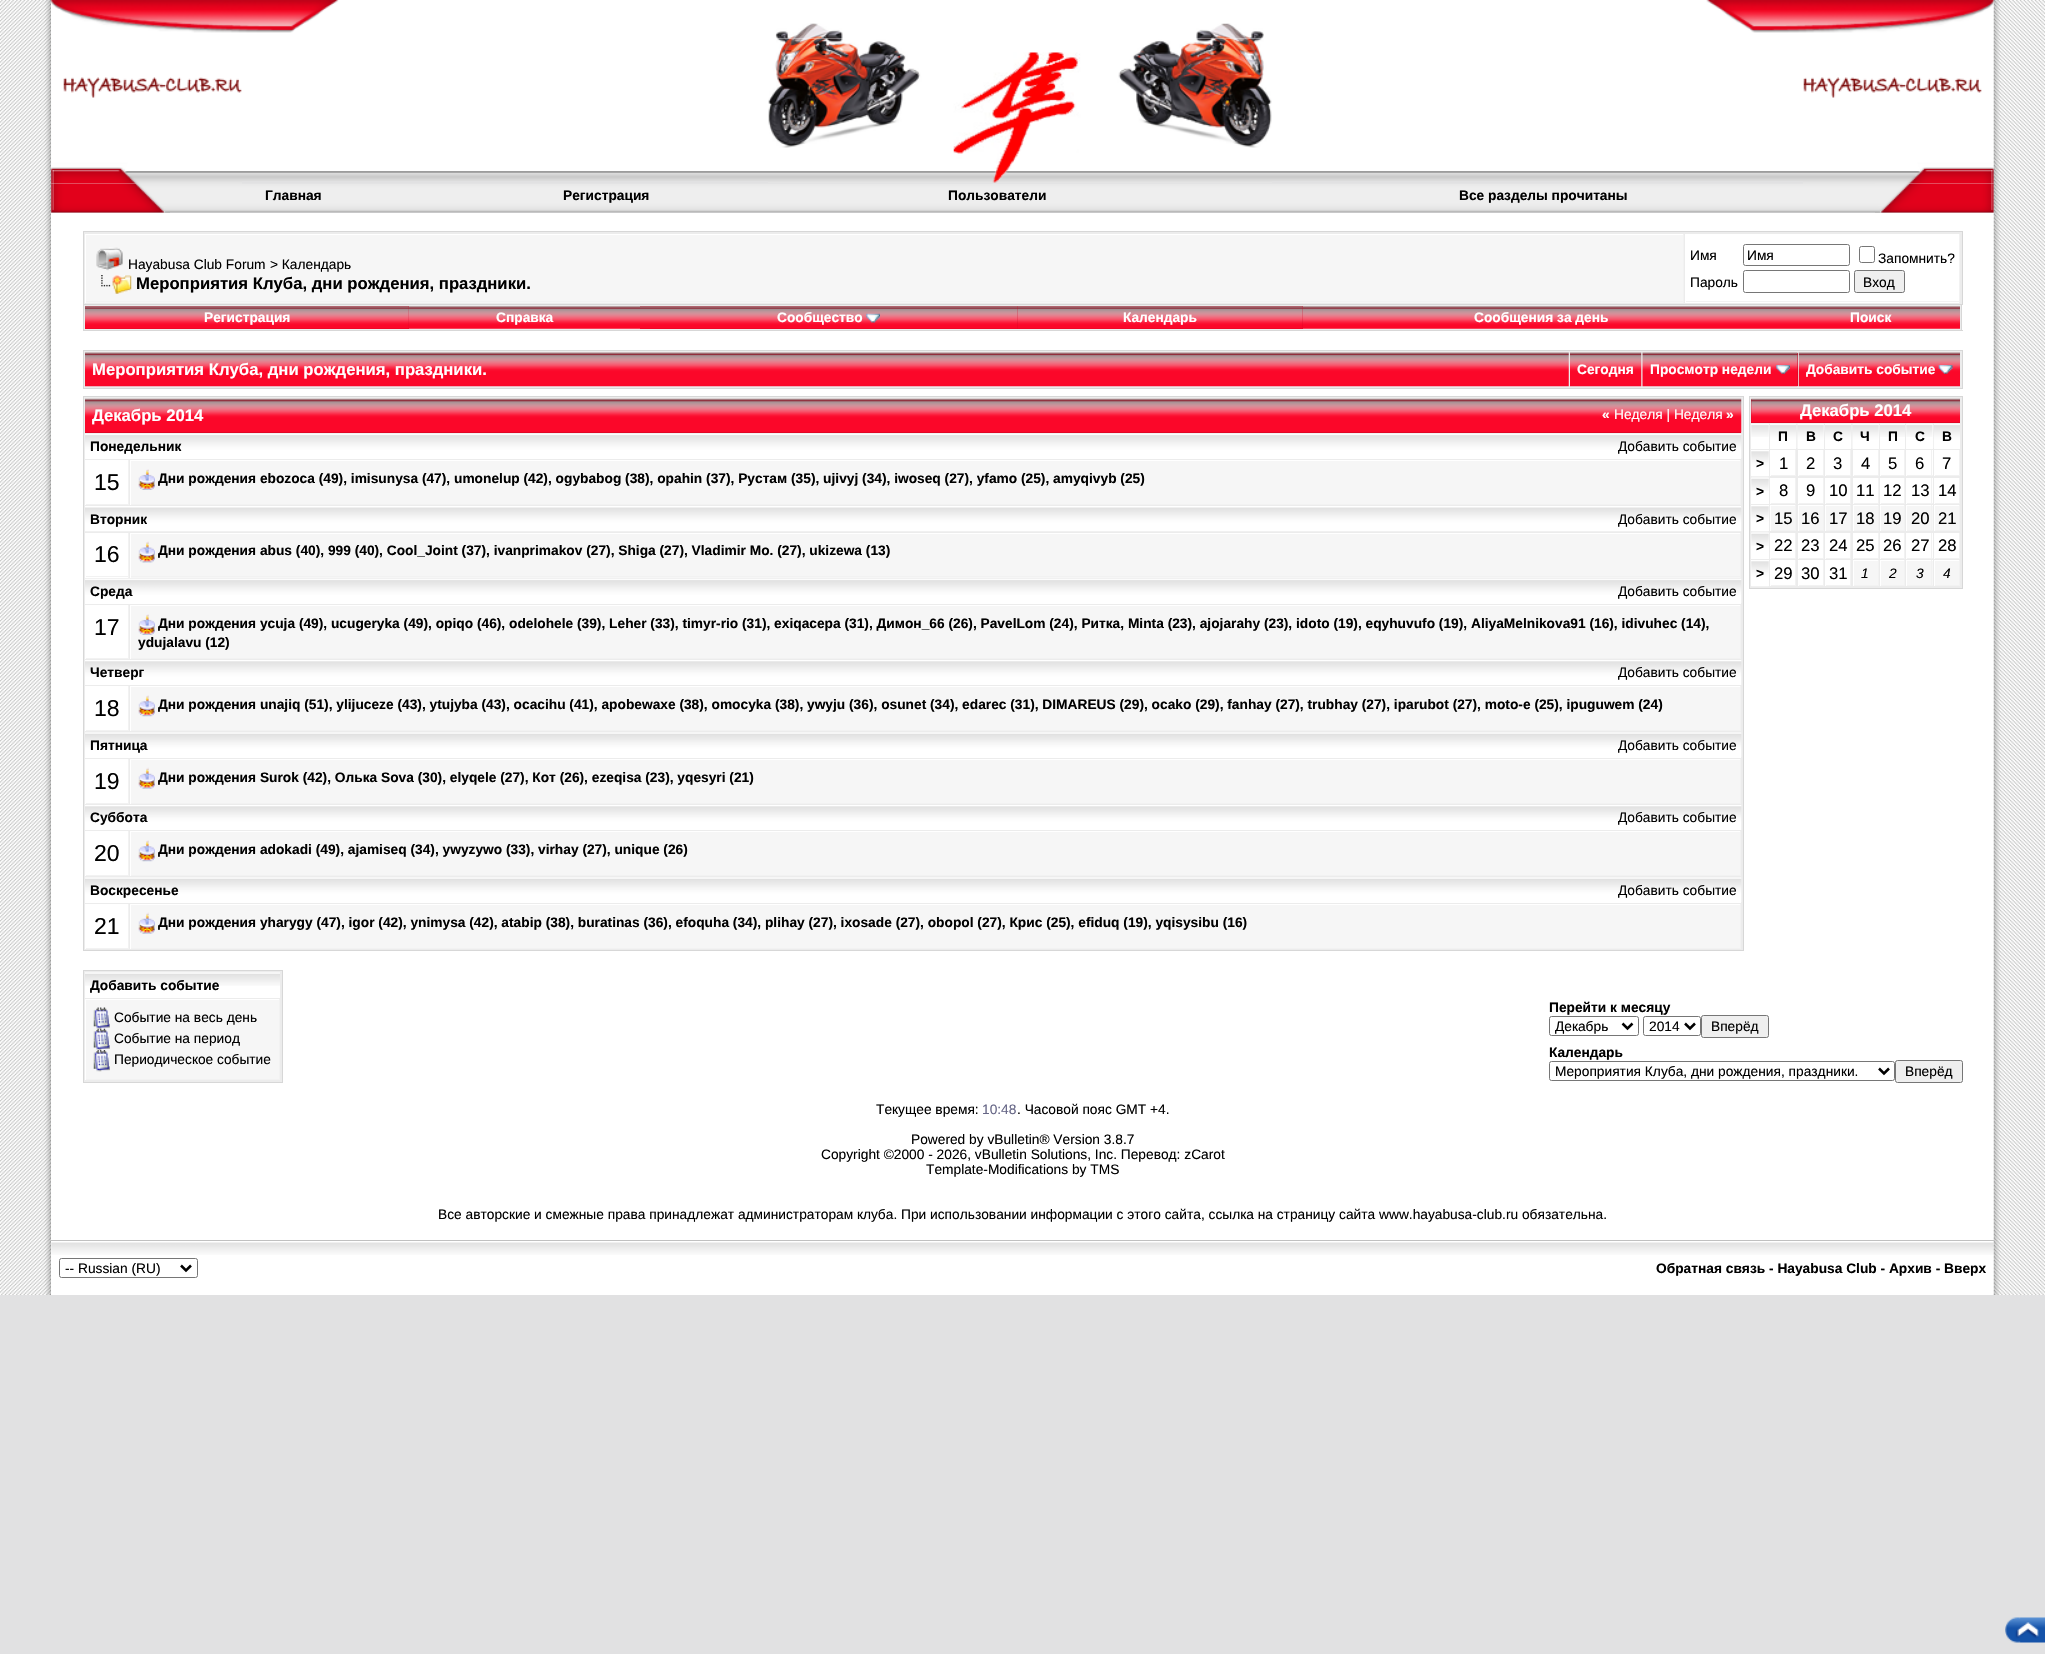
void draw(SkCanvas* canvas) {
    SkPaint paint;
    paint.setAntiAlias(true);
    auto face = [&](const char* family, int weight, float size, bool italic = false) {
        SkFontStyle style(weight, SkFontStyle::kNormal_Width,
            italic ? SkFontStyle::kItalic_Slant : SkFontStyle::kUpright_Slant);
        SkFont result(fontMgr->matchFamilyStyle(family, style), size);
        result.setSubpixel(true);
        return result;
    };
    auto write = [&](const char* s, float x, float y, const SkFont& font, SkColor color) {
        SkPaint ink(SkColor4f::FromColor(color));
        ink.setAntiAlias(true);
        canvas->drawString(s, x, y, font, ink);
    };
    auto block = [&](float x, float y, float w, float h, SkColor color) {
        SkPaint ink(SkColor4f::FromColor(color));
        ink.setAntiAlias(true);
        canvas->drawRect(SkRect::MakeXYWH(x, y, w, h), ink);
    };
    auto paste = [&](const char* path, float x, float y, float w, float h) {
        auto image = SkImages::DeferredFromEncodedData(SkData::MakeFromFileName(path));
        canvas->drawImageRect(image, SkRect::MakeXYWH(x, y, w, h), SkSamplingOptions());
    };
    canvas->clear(SkColorSetRGB(225, 225, 226));
    paste("pic1.png", 0, 0, 52, 1295);
    block(51, 0, 1943, 39, SK_ColorWHITE);
    paste("pic2.png", 51, 0, 288, 33);
    paste("pic3.png", 775, 23, 489, 16);
    paste("pic4.png", 1706, 0, 288, 33);
    paste("pic5.png", 51, 38, 1943, 143);
    paste("pic6.png", 51, 39, 191, 145);
    paste("pic7.png", 768, 38, 504, 145);
    paste("pic8.png", 1803, 39, 191, 145);
    paste("pic9.png", 51, 183, 1943, 30);
    paste("pic10.png", 51, 183, 119, 30);
    paste("pic11.png", 1875, 183, 119, 30);
    auto kFont1 = face("Liberation Sans", 700, 13.75f);
    write("Главная", 265, 200, kFont1, SK_ColorBLACK);
    write("Регистрация", 563, 200, kFont1, SK_ColorBLACK);
    write("Пользователи", 948, 200, kFont1, SK_ColorBLACK);
    write("Все разделы прочитаны", 1459, 200, kFont1, SK_ColorBLACK);
    block(51, 213, 1943, 870, SK_ColorWHITE);
    paint.setColor(SkColorSetRGB(236, 236, 236));
    canvas->drawRect(SkRect::MakeXYWH(83.5f, 231.5f, 1879, 73), paint);
    paint.setStyle(SkPaint::kStroke_Style);
    paint.setStrokeWidth(1);
    paint.setColor(SkColorSetRGB(215, 215, 215));
    canvas->drawRect(SkRect::MakeXYWH(83.5f, 231.5f, 1879, 73), paint);
    block(86, 235, 1597, 68, SkColorSetRGB(246, 246, 246));
    block(85, 234, 1599, 1, SK_ColorWHITE);
    block(1683, 234, 1, 69, SkColorSetRGB(242, 242, 242));
    block(85, 301, 1599, 1, SkColorSetRGB(242, 242, 242));
    block(85, 234, 1, 69, SK_ColorWHITE);
    paste("pic12.png", 96, 247, 27, 24);
    auto kFont2 = face("Liberation Sans", 400, 13.75f);
    write("Hayabusa Club Forum", 128, 269, kFont2, SK_ColorBLACK);
    write("> Календарь", 270, 269, kFont2, SK_ColorBLACK);
    paste("pic13.png", 101, 275, 31, 19);
    auto kFont3 = face("Liberation Sans", 700, 16.7f);
    write("Мероприятия Клуба, дни рождения, праздники.", 136, 289, kFont3, SK_ColorBLACK);
    block(1686, 234, 273, 69, SK_ColorWHITE);
    block(1959, 234, 1, 69, SkColorSetRGB(242, 242, 242));
    block(1685, 301, 275, 1, SkColorSetRGB(242, 242, 242));
    block(1685, 234, 1, 69, SK_ColorWHITE);
    write("Имя", 1690, 260, kFont2, SK_ColorBLACK);
    paint.setColor(SkColorSetRGB(118, 118, 118));
    canvas->drawRoundRect(SkRect::MakeXYWH(1743.5f, 244.5f, 106, 21), 2, 2, paint);
    write("Имя", 1747, 260, kFont2, SK_ColorBLACK);
    canvas->drawRoundRect(SkRect::MakeXYWH(1859.5f, 246.5f, 15, 16), 2, 2, paint);
    write("Запомнить?", 1878, 263, kFont2, SK_ColorBLACK);
    write("Пароль", 1690, 287, kFont2, SK_ColorBLACK);
    canvas->drawRoundRect(SkRect::MakeXYWH(1743.5f, 270.5f, 106, 22), 2, 2, paint);
    paint.setStyle(SkPaint::kFill_Style);
    paint.setColor(SkColorSetRGB(239, 239, 239));
    canvas->drawRoundRect(SkRect::MakeXYWH(1854.5f, 270.5f, 50, 22), 2, 2, paint);
    paint.setStyle(SkPaint::kStroke_Style);
    paint.setColor(SkColorSetRGB(118, 118, 118));
    canvas->drawRoundRect(SkRect::MakeXYWH(1854.5f, 270.5f, 50, 22), 2, 2, paint);
    write("Вход", 1863, 287, kFont2, SK_ColorBLACK);
    block(84, 305, 1877, 25, SkColorSetRGB(236, 236, 236));
    block(1961, 305, 1, 26, SkColorSetRGB(215, 215, 215));
    block(83, 330, 1880, 1, SkColorSetRGB(215, 215, 215));
    block(83, 305, 1, 26, SkColorSetRGB(215, 215, 215));
    block(85, 306, 324, 23, SkColorSetRGB(202, 6, 33));
    paste("pic14.png", 85, 306, 324, 23);
    write("Регистрация", 204, 322, kFont1, SK_ColorWHITE);
    paste("pic15.png", 408, 306, 232, 23);
    write("Справка", 496, 322, kFont1, SK_ColorWHITE);
    block(640, 306, 663, 23, SkColorSetRGB(202, 6, 33));
    paste("pic16.png", 640, 306, 378, 23);
    write("Сообщество", 777, 322, kFont1, SK_ColorWHITE);
    paste("pic17.png", 866, 313, 14, 10);
    paste("pic18.png", 1017, 306, 286, 23);
    write("Календарь", 1123, 322, kFont1, SK_ColorWHITE);
    paste("pic19.png", 1302, 306, 478, 23);
    write("Сообщения за день", 1474, 322, kFont1, SK_ColorWHITE);
    paste("pic20.png", 1780, 306, 180, 23);
    write("Поиск", 1850, 322, kFont1, SK_ColorWHITE);
    paint.setStyle(SkPaint::kFill_Style);
    paint.setColor(SkColorSetRGB(236, 236, 236));
    canvas->drawRect(SkRect::MakeXYWH(83.5f, 350.5f, 1879, 38), paint);
    paint.setStyle(SkPaint::kStroke_Style);
    paint.setColor(SkColorSetRGB(215, 215, 215));
    canvas->drawRect(SkRect::MakeXYWH(83.5f, 350.5f, 1879, 38), paint);
    paste("pic21.png", 85, 352, 1484, 35);
    write("Мероприятия Клуба, дни рождения, праздники.", 92, 375, kFont3, SK_ColorWHITE);
    paste("pic22.png", 1570, 352, 72, 35);
    write("Сегодня", 1577, 374, kFont1, SK_ColorWHITE);
    block(1797, 353, 1, 33, SkColorSetRGB(202, 6, 33));
    paste("pic23.png", 1642, 352, 156, 35);
    write("Просмотр недели", 1650, 374, kFont1, SK_ColorWHITE);
    paste("pic24.png", 1776, 365, 14, 9);
    paste("pic25.png", 1798, 352, 162, 35);
    write("Добавить событие", 1806, 374, kFont1, SK_ColorWHITE);
    paste("pic26.png", 1938, 365, 15, 9);
    paint.setStyle(SkPaint::kFill_Style);
    paint.setColor(SkColorSetRGB(236, 236, 236));
    canvas->drawRect(SkRect::MakeXYWH(83.5f, 396.5f, 1660, 554), paint);
    paint.setStyle(SkPaint::kStroke_Style);
    paint.setColor(SkColorSetRGB(215, 215, 215));
    canvas->drawRect(SkRect::MakeXYWH(83.5f, 396.5f, 1660, 554), paint);
    block(85, 432, 1656, 1, SkColorSetRGB(202, 6, 33));
    paste("pic27.png", 85, 398, 1657, 35);
    write("Декабрь 2014", 92, 421, kFont3, SK_ColorWHITE);
    write("«", 1602, 419, kFont1, SK_ColorWHITE);
    write("Неделя | Неделя", 1614, 419, kFont2, SK_ColorWHITE);
    write("»", 1726, 419, kFont1, SK_ColorWHITE);
    block(85, 458, 1656, 1, SK_ColorWHITE);
    paste("pic28.png", 85, 433, 1657, 25);
    write("Понедельник", 90, 451, kFont1, SK_ColorBLACK);
    write("Добавить событие", 1618, 451, kFont2, SK_ColorBLACK);
    block(86, 460, 42, 44, SK_ColorWHITE);
    block(128, 460, 1, 45, SkColorSetRGB(242, 242, 242));
    block(85, 504, 44, 1, SkColorSetRGB(242, 242, 242));
    block(85, 460, 1, 45, SK_ColorWHITE);
    auto kFont4 = face("Liberation Sans", 400, 23);
    write("15", 94, 490, kFont4, SK_ColorBLACK);
    block(131, 461, 1609, 43, SkColorSetRGB(246, 246, 246));
    block(130, 460, 1611, 1, SK_ColorWHITE);
    block(1740, 460, 1, 45, SkColorSetRGB(242, 242, 242));
    block(130, 504, 1611, 1, SkColorSetRGB(242, 242, 242));
    block(130, 460, 1, 45, SK_ColorWHITE);
    paste("pic29.png", 138, 469, 17, 21);
    write("Дни рождения ebozoca (49), imisunysa (47), umonelup (42), ogybabog (38), opahin (37), Рустам (35), ujivyj (34), iwoseq (27), yfamo (25), amyqivyb (25)", 158, 483, kFont1, SK_ColorBLACK);
    block(85, 506, 1656, 1, SK_ColorWHITE);
    paste("pic30.png", 85, 507, 1657, 25);
    write("Вторник", 90, 524, kFont1, SK_ColorBLACK);
    write("Добавить событие", 1618, 524, kFont2, SK_ColorBLACK);
    block(86, 533, 42, 45, SK_ColorWHITE);
    block(128, 533, 1, 45, SkColorSetRGB(242, 242, 242));
    block(85, 576, 44, 1, SkColorSetRGB(242, 242, 242));
    block(85, 533, 1, 45, SK_ColorWHITE);
    write("16", 94, 562, kFont4, SK_ColorBLACK);
    block(131, 534, 1609, 44, SkColorSetRGB(246, 246, 246));
    block(130, 533, 1611, 1, SK_ColorWHITE);
    block(1740, 533, 1, 45, SkColorSetRGB(242, 242, 242));
    block(130, 576, 1611, 1, SkColorSetRGB(242, 242, 242));
    block(130, 533, 1, 45, SK_ColorWHITE);
    paste("pic31.png", 138, 541, 17, 22);
    write("Дни рождения abus (40), 999 (40), Cool_Joint (37), ivanprimakov (27), Shiga (27), Vladimir Mo. (27), ukizewa (13)", 158, 555, kFont1, SK_ColorBLACK);
    block(85, 603, 1656, 1, SK_ColorWHITE);
    paste("pic32.png", 85, 578, 1657, 25);
    write("Среда", 90, 596, kFont1, SK_ColorBLACK);
    write("Добавить событие", 1618, 596, kFont2, SK_ColorBLACK);
    block(86, 605, 42, 53, SK_ColorWHITE);
    block(128, 605, 1, 54, SkColorSetRGB(242, 242, 242));
    block(85, 658, 44, 1, SkColorSetRGB(242, 242, 242));
    block(85, 605, 1, 54, SK_ColorWHITE);
    write("17", 94, 635, kFont4, SK_ColorBLACK);
    block(131, 606, 1609, 52, SkColorSetRGB(246, 246, 246));
    block(130, 605, 1611, 1, SK_ColorWHITE);
    block(1740, 605, 1, 54, SkColorSetRGB(242, 242, 242));
    block(130, 658, 1611, 1, SkColorSetRGB(242, 242, 242));
    block(130, 605, 1, 54, SK_ColorWHITE);
    paste("pic29.png", 138, 614, 17, 21);
    write("Дни рождения ycuja (49), ucugeryka (49), opiqo (46), odelohele (39), Leher (33), timyr-rio (31), exiqacepa (31), Димон_66 (26), PavelLom (24), Ритка, Minta (23), ajojarahy (23), idoto (19), eqyhuvufo (19), AliyaMelnikova91 (16), idivuhec (14),", 158, 628, kFont1, SK_ColorBLACK);
    write("ydujalavu (12)", 138, 647, kFont1, SK_ColorBLACK);
    paste("pic33.png", 85, 660, 1657, 25);
    write("Четверг", 90, 677, kFont1, SK_ColorBLACK);
    write("Добавить событие", 1618, 677, kFont2, SK_ColorBLACK);
    block(86, 686, 42, 44, SK_ColorWHITE);
    block(128, 686, 1, 45, SkColorSetRGB(242, 242, 242));
    block(85, 730, 44, 1, SkColorSetRGB(242, 242, 242));
    block(85, 686, 1, 45, SK_ColorWHITE);
    write("18", 94, 716, kFont4, SK_ColorBLACK);
    block(131, 687, 1609, 43, SkColorSetRGB(246, 246, 246));
    block(130, 686, 1611, 1, SK_ColorWHITE);
    block(1740, 686, 1, 45, SkColorSetRGB(242, 242, 242));
    block(130, 730, 1611, 1, SkColorSetRGB(242, 242, 242));
    block(130, 686, 1, 45, SK_ColorWHITE);
    paste("pic34.png", 138, 695, 17, 22);
    write("Дни рождения unajiq (51), ylijuceze (43), ytujyba (43), ocacihu (41), apobewaxe (38), omocyka (38), ywyju (36), osunet (34), edarec (31), DIMAREUS (29), ocako (29), fanhay (27), trubhay (27), iparubot (27), moto-e (25), ipuguwem (24)", 158, 709, kFont1, SK_ColorBLACK);
    block(85, 757, 1656, 1, SK_ColorWHITE);
    paste("pic35.png", 85, 732, 1657, 25);
    write("Пятница", 90, 750, kFont1, SK_ColorBLACK);
    write("Добавить событие", 1618, 750, kFont2, SK_ColorBLACK);
    block(86, 759, 42, 44, SK_ColorWHITE);
    block(128, 759, 1, 45, SkColorSetRGB(242, 242, 242));
    block(85, 803, 44, 1, SkColorSetRGB(242, 242, 242));
    block(85, 759, 1, 45, SK_ColorWHITE);
    write("19", 94, 789, kFont4, SK_ColorBLACK);
    block(131, 760, 1609, 43, SkColorSetRGB(246, 246, 246));
    block(130, 759, 1611, 1, SK_ColorWHITE);
    block(1740, 759, 1, 45, SkColorSetRGB(242, 242, 242));
    block(130, 803, 1611, 1, SkColorSetRGB(242, 242, 242));
    block(130, 759, 1, 45, SK_ColorWHITE);
    paste("pic36.png", 138, 767, 17, 22);
    write("Дни рождения Surok (42), Олька Sova (30), elyqele (27), Кот (26), ezeqisa (23), yqesyri (21)", 158, 782, kFont1, SK_ColorBLACK);
    paste("pic33.png", 85, 805, 1657, 25);
    write("Суббота", 90, 822, kFont1, SK_ColorBLACK);
    write("Добавить событие", 1618, 822, kFont2, SK_ColorBLACK);
    block(86, 831, 42, 44, SK_ColorWHITE);
    block(128, 831, 1, 45, SkColorSetRGB(242, 242, 242));
    block(85, 875, 44, 1, SkColorSetRGB(242, 242, 242));
    block(85, 831, 1, 45, SK_ColorWHITE);
    write("20", 94, 861, kFont4, SK_ColorBLACK);
    block(131, 832, 1609, 43, SkColorSetRGB(246, 246, 246));
    block(130, 831, 1611, 1, SK_ColorWHITE);
    block(1740, 831, 1, 45, SkColorSetRGB(242, 242, 242));
    block(130, 875, 1611, 1, SkColorSetRGB(242, 242, 242));
    block(130, 831, 1, 45, SK_ColorWHITE);
    paste("pic34.png", 138, 840, 17, 22);
    write("Дни рождения adokadi (49), ajamiseq (34), ywyzywo (33), virhay (27), unique (26)", 158, 854, kFont1, SK_ColorBLACK);
    block(85, 902, 1656, 1, SK_ColorWHITE);
    paste("pic35.png", 85, 877, 1657, 25);
    write("Воскресенье", 90, 895, kFont1, SK_ColorBLACK);
    write("Добавить событие", 1618, 895, kFont2, SK_ColorBLACK);
    block(86, 904, 42, 44, SK_ColorWHITE);
    block(128, 904, 1, 45, SkColorSetRGB(242, 242, 242));
    block(85, 948, 44, 1, SkColorSetRGB(242, 242, 242));
    block(85, 904, 1, 45, SK_ColorWHITE);
    write("21", 94, 934, kFont4, SK_ColorBLACK);
    block(131, 905, 1609, 43, SkColorSetRGB(246, 246, 246));
    block(130, 904, 1611, 1, SK_ColorWHITE);
    block(1740, 904, 1, 45, SkColorSetRGB(242, 242, 242));
    block(130, 948, 1611, 1, SkColorSetRGB(242, 242, 242));
    block(130, 904, 1, 45, SK_ColorWHITE);
    paste("pic36.png", 138, 912, 17, 22);
    write("Дни рождения yharygy (47), igor (42), ynimysa (42), atabip (38), buratinas (36), efoquha (34), plihay (27), ixosade (27), obopol (27), Крис (25), efiduq (19), yqisysibu (16)", 158, 927, kFont1, SK_ColorBLACK);
    paint.setStyle(SkPaint::kFill_Style);
    paint.setColor(SkColorSetRGB(236, 236, 236));
    canvas->drawRect(SkRect::MakeXYWH(1749.5f, 396.5f, 213, 192), paint);
    paint.setStyle(SkPaint::kStroke_Style);
    paint.setColor(SkColorSetRGB(215, 215, 215));
    canvas->drawRect(SkRect::MakeXYWH(1749.5f, 396.5f, 213, 192), paint);
    block(1751, 399, 209, 24, SkColorSetRGB(202, 6, 33));
    paste("pic37.png", 1751, 398, 209, 25);
    write("Декабрь 2014", 1800, 416, kFont3, SK_ColorWHITE);
    block(1751, 424, 18, 25, SK_ColorWHITE);
    paste("pic38.png", 1751, 423, 18, 14);
    block(1770, 448, 26, 1, SK_ColorWHITE);
    paste("pic39.png", 1770, 423, 27, 25);
    write("П", 1778, 441, kFont1, SK_ColorBLACK);
    block(1798, 424, 26, 25, SK_ColorWHITE);
    paste("pic40.png", 1797, 423, 27, 26);
    write("В", 1806, 441, kFont1, SK_ColorBLACK);
    block(1825, 448, 26, 1, SK_ColorWHITE);
    paste("pic39.png", 1825, 423, 27, 25);
    write("С", 1833, 441, kFont1, SK_ColorBLACK);
    block(1853, 424, 26, 25, SK_ColorWHITE);
    paste("pic40.png", 1852, 423, 27, 26);
    write("Ч", 1860, 441, kFont1, SK_ColorBLACK);
    block(1880, 437, 25, 12, SK_ColorWHITE);
    paste("pic41.png", 1880, 423, 25, 14);
    write("П", 1888, 441, kFont1, SK_ColorBLACK);
    block(1906, 424, 27, 25, SK_ColorWHITE);
    paste("pic42.png", 1906, 423, 27, 14);
    write("С", 1915, 441, kFont1, SK_ColorBLACK);
    block(1934, 448, 26, 1, SK_ColorWHITE);
    paste("pic43.png", 1933, 423, 27, 25);
    write("В", 1942, 441, kFont1, SK_ColorBLACK);
    block(1751, 450, 18, 26, SK_ColorWHITE);
    paste("pic44.png", 1751, 451, 18, 26);
    write(">", 1756, 468, kFont1, SK_ColorBLACK);
    block(1771, 450, 24, 25, SK_ColorWHITE);
    block(1795, 450, 1, 26, SkColorSetRGB(242, 242, 242));
    block(1770, 475, 26, 1, SkColorSetRGB(242, 242, 242));
    block(1770, 450, 1, 26, SK_ColorWHITE);
    auto kFont5 = face("Liberation Sans", 400, 16.7f);
    write("1", 1779, 469, kFont5, SK_ColorBLACK);
    block(1799, 450, 24, 25, SK_ColorWHITE);
    block(1823, 450, 1, 26, SkColorSetRGB(242, 242, 242));
    block(1798, 475, 26, 1, SkColorSetRGB(242, 242, 242));
    block(1798, 450, 1, 26, SK_ColorWHITE);
    write("2", 1806, 469, kFont5, SK_ColorBLACK);
    block(1826, 450, 24, 25, SK_ColorWHITE);
    block(1850, 450, 1, 26, SkColorSetRGB(242, 242, 242));
    block(1825, 475, 26, 1, SkColorSetRGB(242, 242, 242));
    block(1825, 450, 1, 26, SK_ColorWHITE);
    write("3", 1833, 469, kFont5, SK_ColorBLACK);
    block(1854, 450, 24, 25, SK_ColorWHITE);
    block(1878, 450, 1, 26, SkColorSetRGB(242, 242, 242));
    block(1853, 475, 26, 1, SkColorSetRGB(242, 242, 242));
    block(1853, 450, 1, 26, SK_ColorWHITE);
    write("4", 1861, 469, kFont5, SK_ColorBLACK);
    block(1881, 450, 23, 25, SK_ColorWHITE);
    block(1904, 450, 1, 26, SkColorSetRGB(242, 242, 242));
    block(1880, 475, 25, 1, SkColorSetRGB(242, 242, 242));
    block(1880, 450, 1, 26, SK_ColorWHITE);
    write("5", 1888, 469, kFont5, SK_ColorBLACK);
    block(1907, 450, 26, 25, SK_ColorWHITE);
    block(1931, 450, 1, 26, SkColorSetRGB(242, 242, 242));
    block(1906, 475, 27, 1, SkColorSetRGB(242, 242, 242));
    block(1906, 450, 1, 26, SK_ColorWHITE);
    write("6", 1915, 469, kFont5, SK_ColorBLACK);
    block(1935, 450, 24, 25, SK_ColorWHITE);
    block(1959, 450, 1, 26, SkColorSetRGB(242, 242, 242));
    block(1934, 475, 26, 1, SkColorSetRGB(242, 242, 242));
    block(1934, 450, 1, 26, SK_ColorWHITE);
    write("7", 1942, 469, kFont5, SK_ColorBLACK);
    block(1751, 478, 18, 26, SK_ColorWHITE);
    paste("pic45.png", 1751, 477, 18, 14);
    write(">", 1756, 496, kFont1, SK_ColorBLACK);
    block(1771, 478, 24, 25, SK_ColorWHITE);
    block(1795, 478, 1, 26, SkColorSetRGB(242, 242, 242));
    block(1770, 503, 26, 1, SkColorSetRGB(242, 242, 242));
    block(1770, 478, 1, 26, SK_ColorWHITE);
    write("8", 1779, 496, kFont5, SK_ColorBLACK);
    block(1799, 478, 24, 25, SK_ColorWHITE);
    block(1823, 478, 1, 26, SkColorSetRGB(242, 242, 242));
    block(1798, 503, 26, 1, SkColorSetRGB(242, 242, 242));
    block(1798, 478, 1, 26, SK_ColorWHITE);
    write("9", 1806, 496, kFont5, SK_ColorBLACK);
    block(1826, 478, 24, 25, SK_ColorWHITE);
    block(1850, 478, 1, 26, SkColorSetRGB(242, 242, 242));
    block(1825, 503, 26, 1, SkColorSetRGB(242, 242, 242));
    block(1825, 478, 1, 26, SK_ColorWHITE);
    write("10", 1829, 496, kFont5, SK_ColorBLACK);
    block(1854, 478, 24, 25, SK_ColorWHITE);
    block(1878, 478, 1, 26, SkColorSetRGB(242, 242, 242));
    block(1853, 503, 26, 1, SkColorSetRGB(242, 242, 242));
    block(1853, 478, 1, 26, SK_ColorWHITE);
    write("11", 1856, 496, kFont5, SK_ColorBLACK);
    block(1881, 478, 23, 25, SK_ColorWHITE);
    block(1904, 478, 1, 26, SkColorSetRGB(242, 242, 242));
    block(1880, 503, 25, 1, SkColorSetRGB(242, 242, 242));
    block(1880, 478, 1, 26, SK_ColorWHITE);
    write("12", 1883, 496, kFont5, SK_ColorBLACK);
    block(1907, 478, 26, 25, SK_ColorWHITE);
    block(1931, 478, 1, 26, SkColorSetRGB(242, 242, 242));
    block(1906, 503, 27, 1, SkColorSetRGB(242, 242, 242));
    block(1906, 478, 1, 26, SK_ColorWHITE);
    write("13", 1911, 496, kFont5, SK_ColorBLACK);
    block(1935, 478, 24, 25, SK_ColorWHITE);
    block(1959, 478, 1, 26, SkColorSetRGB(242, 242, 242));
    block(1934, 503, 26, 1, SkColorSetRGB(242, 242, 242));
    block(1934, 478, 1, 26, SK_ColorWHITE);
    write("14", 1938, 496, kFont5, SK_ColorBLACK);
    block(1751, 505, 18, 26, SK_ColorWHITE);
    paste("pic44.png", 1751, 506, 18, 26);
    write(">", 1756, 523, kFont1, SK_ColorBLACK);
    block(1771, 506, 24, 24, SkColorSetRGB(246, 246, 246));
    block(1770, 505, 26, 1, SK_ColorWHITE);
    block(1795, 505, 1, 26, SkColorSetRGB(242, 242, 242));
    block(1770, 530, 26, 1, SkColorSetRGB(242, 242, 242));
    block(1770, 505, 1, 26, SK_ColorWHITE);
    write("15", 1774, 524, kFont5, SK_ColorBLACK);
    block(1799, 506, 24, 24, SkColorSetRGB(246, 246, 246));
    block(1798, 505, 26, 1, SK_ColorWHITE);
    block(1823, 505, 1, 26, SkColorSetRGB(242, 242, 242));
    block(1798, 530, 26, 1, SkColorSetRGB(242, 242, 242));
    block(1798, 505, 1, 26, SK_ColorWHITE);
    write("16", 1801, 524, kFont5, SK_ColorBLACK);
    block(1826, 506, 24, 24, SkColorSetRGB(246, 246, 246));
    block(1825, 505, 26, 1, SK_ColorWHITE);
    block(1850, 505, 1, 26, SkColorSetRGB(242, 242, 242));
    block(1825, 530, 26, 1, SkColorSetRGB(242, 242, 242));
    block(1825, 505, 1, 26, SK_ColorWHITE);
    write("17", 1829, 524, kFont5, SK_ColorBLACK);
    block(1854, 506, 24, 24, SkColorSetRGB(246, 246, 246));
    block(1853, 505, 26, 1, SK_ColorWHITE);
    block(1878, 505, 1, 26, SkColorSetRGB(242, 242, 242));
    block(1853, 530, 26, 1, SkColorSetRGB(242, 242, 242));
    block(1853, 505, 1, 26, SK_ColorWHITE);
    write("18", 1856, 524, kFont5, SK_ColorBLACK);
    block(1881, 506, 23, 24, SkColorSetRGB(246, 246, 246));
    block(1880, 505, 25, 1, SK_ColorWHITE);
    block(1904, 505, 1, 26, SkColorSetRGB(242, 242, 242));
    block(1880, 530, 25, 1, SkColorSetRGB(242, 242, 242));
    block(1880, 505, 1, 26, SK_ColorWHITE);
    write("19", 1883, 524, kFont5, SK_ColorBLACK);
    block(1907, 506, 26, 24, SkColorSetRGB(246, 246, 246));
    block(1906, 505, 27, 1, SK_ColorWHITE);
    block(1931, 505, 1, 26, SkColorSetRGB(242, 242, 242));
    block(1906, 530, 27, 1, SkColorSetRGB(242, 242, 242));
    block(1906, 505, 1, 26, SK_ColorWHITE);
    write("20", 1911, 524, kFont5, SK_ColorBLACK);
    block(1935, 506, 24, 24, SkColorSetRGB(246, 246, 246));
    block(1934, 505, 26, 1, SK_ColorWHITE);
    block(1959, 505, 1, 26, SkColorSetRGB(242, 242, 242));
    block(1934, 530, 26, 1, SkColorSetRGB(242, 242, 242));
    block(1934, 505, 1, 26, SK_ColorWHITE);
    write("21", 1938, 524, kFont5, SK_ColorBLACK);
    block(1751, 533, 18, 26, SK_ColorWHITE);
    paste("pic45.png", 1751, 532, 18, 14);
    write(">", 1756, 551, kFont1, SK_ColorBLACK);
    block(1771, 533, 24, 25, SK_ColorWHITE);
    block(1795, 533, 1, 26, SkColorSetRGB(242, 242, 242));
    block(1770, 558, 26, 1, SkColorSetRGB(242, 242, 242));
    block(1770, 533, 1, 26, SK_ColorWHITE);
    write("22", 1774, 551, kFont5, SK_ColorBLACK);
    block(1799, 533, 24, 25, SK_ColorWHITE);
    block(1823, 533, 1, 26, SkColorSetRGB(242, 242, 242));
    block(1798, 558, 26, 1, SkColorSetRGB(242, 242, 242));
    block(1798, 533, 1, 26, SK_ColorWHITE);
    write("23", 1801, 551, kFont5, SK_ColorBLACK);
    block(1826, 533, 24, 25, SK_ColorWHITE);
    block(1850, 533, 1, 26, SkColorSetRGB(242, 242, 242));
    block(1825, 558, 26, 1, SkColorSetRGB(242, 242, 242));
    block(1825, 533, 1, 26, SK_ColorWHITE);
    write("24", 1829, 551, kFont5, SK_ColorBLACK);
    block(1854, 533, 24, 25, SK_ColorWHITE);
    block(1878, 533, 1, 26, SkColorSetRGB(242, 242, 242));
    block(1853, 558, 26, 1, SkColorSetRGB(242, 242, 242));
    block(1853, 533, 1, 26, SK_ColorWHITE);
    write("25", 1856, 551, kFont5, SK_ColorBLACK);
    block(1881, 533, 23, 25, SK_ColorWHITE);
    block(1904, 533, 1, 26, SkColorSetRGB(242, 242, 242));
    block(1880, 558, 25, 1, SkColorSetRGB(242, 242, 242));
    block(1880, 533, 1, 26, SK_ColorWHITE);
    write("26", 1883, 551, kFont5, SK_ColorBLACK);
    block(1907, 533, 26, 25, SK_ColorWHITE);
    block(1931, 533, 1, 26, SkColorSetRGB(242, 242, 242));
    block(1906, 558, 27, 1, SkColorSetRGB(242, 242, 242));
    block(1906, 533, 1, 26, SK_ColorWHITE);
    write("27", 1911, 551, kFont5, SK_ColorBLACK);
    block(1935, 533, 24, 25, SK_ColorWHITE);
    block(1959, 533, 1, 26, SkColorSetRGB(242, 242, 242));
    block(1934, 558, 26, 1, SkColorSetRGB(242, 242, 242));
    block(1934, 533, 1, 26, SK_ColorWHITE);
    write("28", 1938, 551, kFont5, SK_ColorBLACK);
    block(1751, 560, 18, 26, SK_ColorWHITE);
    paste("pic44.png", 1751, 561, 18, 26);
    write(">", 1756, 578, kFont1, SK_ColorBLACK);
    block(1771, 560, 24, 25, SK_ColorWHITE);
    block(1795, 560, 1, 26, SkColorSetRGB(242, 242, 242));
    block(1770, 585, 26, 1, SkColorSetRGB(242, 242, 242));
    block(1770, 560, 1, 26, SK_ColorWHITE);
    write("29", 1774, 579, kFont5, SK_ColorBLACK);
    block(1799, 560, 24, 25, SK_ColorWHITE);
    block(1823, 560, 1, 26, SkColorSetRGB(242, 242, 242));
    block(1798, 585, 26, 1, SkColorSetRGB(242, 242, 242));
    block(1798, 560, 1, 26, SK_ColorWHITE);
    write("30", 1801, 579, kFont5, SK_ColorBLACK);
    block(1826, 560, 24, 25, SK_ColorWHITE);
    block(1850, 560, 1, 26, SkColorSetRGB(242, 242, 242));
    block(1825, 585, 26, 1, SkColorSetRGB(242, 242, 242));
    block(1825, 560, 1, 26, SK_ColorWHITE);
    write("31", 1829, 579, kFont5, SK_ColorBLACK);
    block(1854, 561, 24, 24, SkColorSetRGB(246, 246, 246));
    block(1853, 560, 26, 1, SK_ColorWHITE);
    block(1878, 560, 1, 26, SkColorSetRGB(242, 242, 242));
    block(1853, 585, 26, 1, SkColorSetRGB(242, 242, 242));
    block(1853, 560, 1, 26, SK_ColorWHITE);
    auto kFont6 = face("Liberation Sans", 400, 13.75f, true);
    write("1", 1861, 578, kFont6, SK_ColorBLACK);
    block(1881, 561, 23, 24, SkColorSetRGB(246, 246, 246));
    block(1880, 560, 25, 1, SK_ColorWHITE);
    block(1904, 560, 1, 26, SkColorSetRGB(242, 242, 242));
    block(1880, 585, 25, 1, SkColorSetRGB(242, 242, 242));
    block(1880, 560, 1, 26, SK_ColorWHITE);
    write("2", 1889, 578, kFont6, SK_ColorBLACK);
    block(1907, 561, 26, 24, SkColorSetRGB(246, 246, 246));
    block(1906, 560, 27, 1, SK_ColorWHITE);
    block(1931, 560, 1, 26, SkColorSetRGB(242, 242, 242));
    block(1906, 585, 27, 1, SkColorSetRGB(242, 242, 242));
    block(1906, 560, 1, 26, SK_ColorWHITE);
    write("3", 1916, 578, kFont6, SK_ColorBLACK);
    block(1935, 561, 24, 24, SkColorSetRGB(246, 246, 246));
    block(1934, 560, 26, 1, SK_ColorWHITE);
    block(1959, 560, 1, 26, SkColorSetRGB(242, 242, 242));
    block(1934, 585, 26, 1, SkColorSetRGB(242, 242, 242));
    block(1934, 560, 1, 26, SK_ColorWHITE);
    write("4", 1943, 578, kFont6, SK_ColorBLACK);
    paint.setStyle(SkPaint::kFill_Style);
    paint.setColor(SkColorSetRGB(236, 236, 236));
    canvas->drawRect(SkRect::MakeXYWH(83.5f, 970.5f, 199, 112), paint);
    paint.setStyle(SkPaint::kStroke_Style);
    paint.setColor(SkColorSetRGB(215, 215, 215));
    canvas->drawRect(SkRect::MakeXYWH(83.5f, 970.5f, 199, 112), paint);
    block(85, 986, 195, 12, SK_ColorWHITE);
    paste("pic46.png", 85, 972, 195, 14);
    write("Добавить событие", 90, 990, kFont1, SK_ColorBLACK);
    block(86, 1000, 193, 79, SkColorSetRGB(246, 246, 246));
    block(85, 999, 195, 1, SK_ColorWHITE);
    block(279, 999, 1, 81, SkColorSetRGB(242, 242, 242));
    block(85, 1079, 195, 1, SkColorSetRGB(242, 242, 242));
    block(85, 999, 1, 81, SK_ColorWHITE);
    paste("pic47.png", 93, 1007, 17, 22);
    write("Событие на весь день", 114, 1022, kFont2, SK_ColorBLACK);
    paste("pic48.png", 93, 1028, 17, 22);
    write("Событие на период", 114, 1043, kFont2, SK_ColorBLACK);
    paste("pic49.png", 93, 1050, 17, 22);
    write("Периодическое событие", 114, 1064, kFont2, SK_ColorBLACK);
    write("Перейти к месяцу", 1549, 1012, kFont1, SK_ColorBLACK);
    paint.setColor(SkColorSetRGB(118, 118, 118));
    canvas->drawRoundRect(SkRect::MakeXYWH(1549.5f, 1016.5f, 89, 19), 2, 2, paint);
    paint.setStrokeWidth(2.5f);
    paint.setColor(SK_ColorBLACK);
    canvas->drawPath(SkPathBuilder().moveTo(1622.5f, 1023.5f).lineTo(1627.5f, 1028.5f).lineTo(1632.5f, 1023.5f).detach(), paint);
    write("Декабрь", 1555, 1031, kFont2, SK_ColorBLACK);
    paint.setStrokeWidth(1);
    paint.setColor(SkColorSetRGB(118, 118, 118));
    canvas->drawRoundRect(SkRect::MakeXYWH(1643.5f, 1016.5f, 57, 19), 2, 2, paint);
    paint.setStrokeWidth(2.5f);
    paint.setColor(SK_ColorBLACK);
    canvas->drawPath(SkPathBuilder().moveTo(1685, 1023.5f).lineTo(1690, 1028.5f).lineTo(1695, 1023.5f).detach(), paint);
    write("2014", 1649, 1031, kFont2, SK_ColorBLACK);
    paint.setStyle(SkPaint::kFill_Style);
    paint.setColor(SkColorSetRGB(239, 239, 239));
    canvas->drawRoundRect(SkRect::MakeXYWH(1701.5f, 1015.5f, 67, 22), 2, 2, paint);
    paint.setStyle(SkPaint::kStroke_Style);
    paint.setStrokeWidth(1);
    paint.setColor(SkColorSetRGB(118, 118, 118));
    canvas->drawRoundRect(SkRect::MakeXYWH(1701.5f, 1015.5f, 67, 22), 2, 2, paint);
    write("Вперёд", 1711, 1031, kFont2, SK_ColorBLACK);
    write("Календарь", 1549, 1057, kFont1, SK_ColorBLACK);
    canvas->drawRoundRect(SkRect::MakeXYWH(1549.5f, 1061.5f, 345, 19), 2, 2, paint);
    paint.setStrokeWidth(2.5f);
    paint.setColor(SK_ColorBLACK);
    canvas->drawPath(SkPathBuilder().moveTo(1879, 1068.5f).lineTo(1884, 1073.5f).lineTo(1889, 1068.5f).detach(), paint);
    write("Мероприятия Клуба, дни рождения, праздники.", 1555, 1076, kFont2, SK_ColorBLACK);
    paint.setStyle(SkPaint::kFill_Style);
    paint.setColor(SkColorSetRGB(239, 239, 239));
    canvas->drawRoundRect(SkRect::MakeXYWH(1895.5f, 1060.5f, 67, 22), 2, 2, paint);
    paint.setStyle(SkPaint::kStroke_Style);
    paint.setStrokeWidth(1);
    paint.setColor(SkColorSetRGB(118, 118, 118));
    canvas->drawRoundRect(SkRect::MakeXYWH(1895.5f, 1060.5f, 67, 22), 2, 2, paint);
    write("Вперёд", 1905, 1076, kFont2, SK_ColorBLACK);
    block(51, 1083, 1943, 157, SK_ColorWHITE);
    write("Текущее время:", 876, 1114, kFont2, SK_ColorBLACK);
    write("10:48", 982, 1114, kFont2, SkColorSetRGB(102, 102, 134));
    write(". Часовой пояс GMT +4.", 1017, 1114, kFont2, SK_ColorBLACK);
    write("Powered by vBulletin® Version 3.8.7", 911, 1144, kFont2, SK_ColorBLACK);
    write("Copyright ©2000 - 2026, vBulletin Solutions, Inc. Перевод: zCarot", 821, 1159, kFont2, SK_ColorBLACK);
    write("Template-Modifications by TMS", 926, 1174, kFont2, SK_ColorBLACK);
    write("Все авторские и смежные права принадлежат администраторам клуба. При использовании информации с этого сайта, ссылка на страницу сайта www.hayabusa-club.ru обязательна.", 438, 1219, kFont2, SK_ColorBLACK);
    block(51, 1241, 1943, 54, SK_ColorWHITE);
    block(51, 1240, 1943, 1, SkColorSetRGB(192, 192, 192));
    paste("pic50.png", 205, 1242, 125, 13);
    paste("pic51.png", 51, 1242, 154, 13);
    canvas->drawRoundRect(SkRect::MakeXYWH(59.5f, 1258.5f, 138, 19), 2, 2, paint);
    paint.setStrokeWidth(2.5f);
    paint.setColor(SK_ColorBLACK);
    canvas->drawPath(SkPathBuilder().moveTo(181, 1265.5f).lineTo(186, 1270.5f).lineTo(191, 1265.5f).detach(), paint);
    write("-- Russian (RU)", 65, 1273, kFont2, SK_ColorBLACK);
    paste("pic52.png", 330, 1242, 1664, 13);
    write("Обратная связь - Hayabusa Сlub - Архив - Вверх", 1656, 1273, kFont1, SK_ColorBLACK);
    paste("pic53.png", 1993, 0, 52, 1295);
    paste("pic54.png", 2005, 1617, 40, 26);
}
